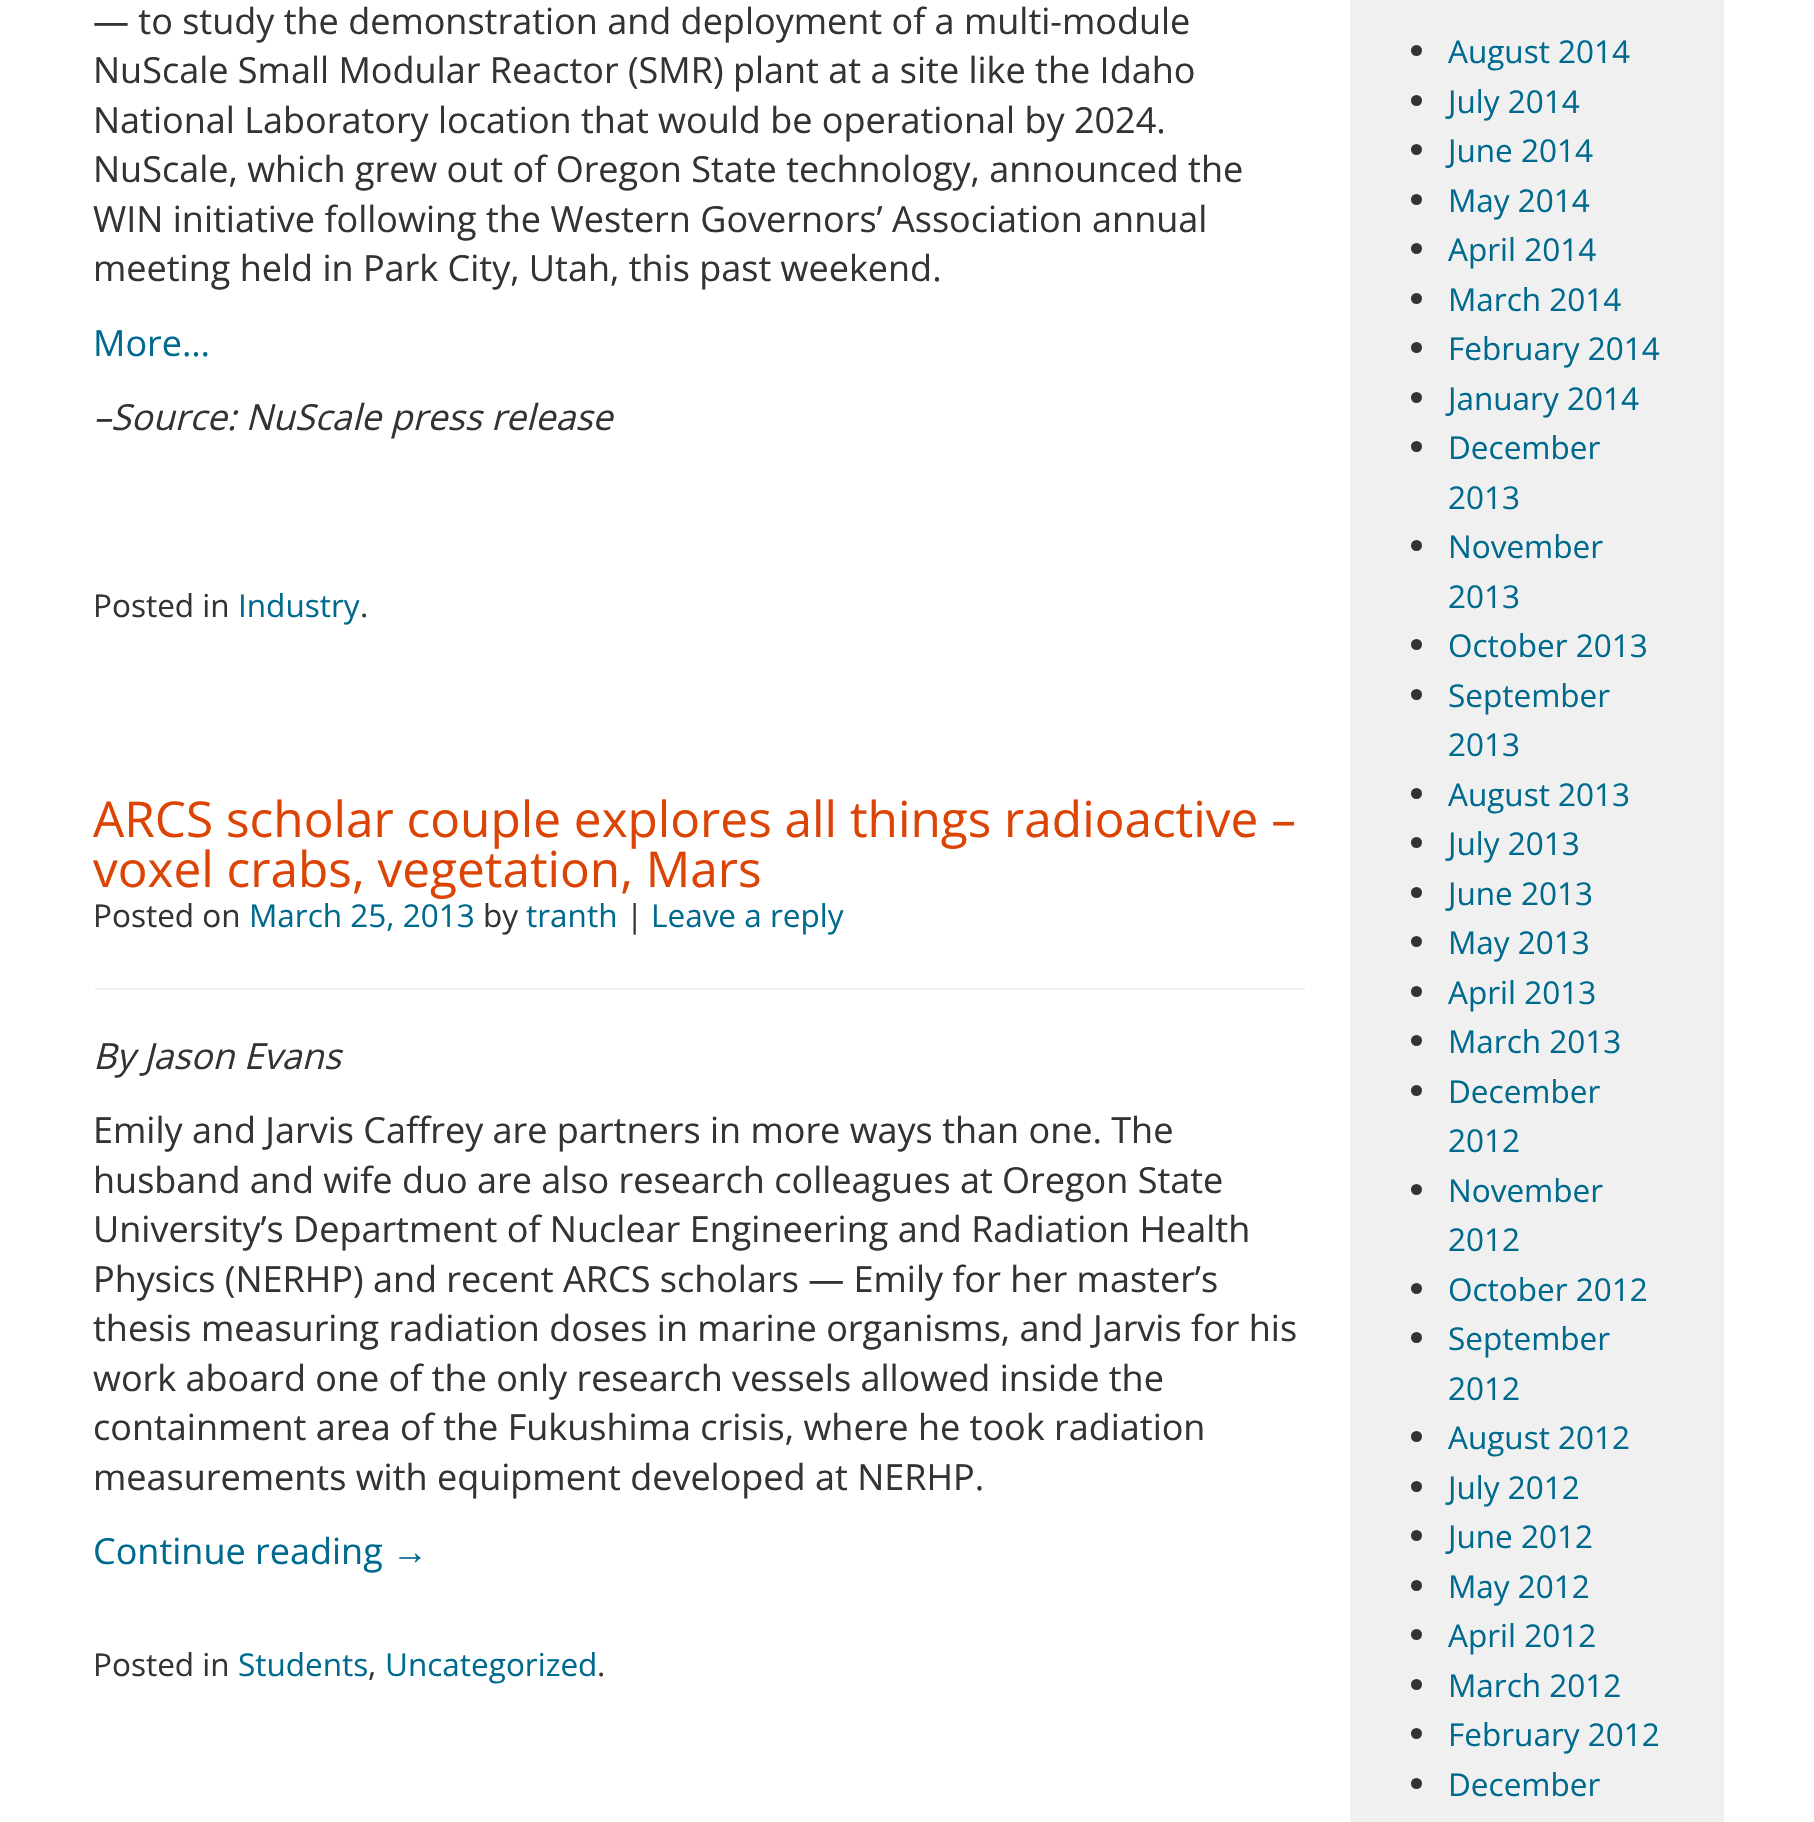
void draw(SkCanvas* canvas) {
    SkPaint paint;
    paint.setAntiAlias(true);
    auto face = [&](const char* family, int weight, float size, bool italic = false) {
        SkFontStyle style(weight, SkFontStyle::kNormal_Width,
            italic ? SkFontStyle::kItalic_Slant : SkFontStyle::kUpright_Slant);
        SkFont result(fontMgr->matchFamilyStyle(family, style), size);
        result.setSubpixel(true);
        return result;
    };
    auto write = [&](const char* s, float x, float y, const SkFont& font, SkColor color) {
        SkPaint ink(SkColor4f::FromColor(color));
        ink.setAntiAlias(true);
        canvas->drawString(s, x, y, font, ink);
    };
    auto block = [&](float x, float y, float w, float h, SkColor color) {
        SkPaint ink(SkColor4f::FromColor(color));
        ink.setAntiAlias(true);
        canvas->drawRect(SkRect::MakeXYWH(x, y, w, h), ink);
    };
    canvas->clear(SK_ColorWHITE);
    auto kFont1 = face("Open Sans", 400, 36);
    write("— to study the demonstration and deployment of a multi-module", 93, 34, kFont1, SkColorSetRGB(51, 51, 51));
    write("NuScale Small Modular Reactor (SMR) plant at a site like the Idaho", 93, 83, kFont1, SkColorSetRGB(51, 51, 51));
    write("National Laboratory location that would be operational by 2024.", 93, 133, kFont1, SkColorSetRGB(51, 51, 51));
    write("NuScale, which grew out of Oregon State technology, announced the", 93, 182, kFont1, SkColorSetRGB(51, 51, 51));
    write("WIN initiative following the Western Governors’ Association annual", 93, 232, kFont1, SkColorSetRGB(51, 51, 51));
    write("meeting held in Park City, Utah, this past weekend.", 93, 281, kFont1, SkColorSetRGB(51, 51, 51));
    write("More…", 93, 356, kFont1, SkColorSetRGB(0, 106, 142));
    auto kFont2 = face("Open Sans", 400, 36, true);
    write("–Source: NuScale press release", 93, 430, kFont2, SkColorSetRGB(51, 51, 51));
    auto kFont3 = face("Open Sans", 400, 31.5f);
    write("Posted in", 93, 617, kFont3, SkColorSetRGB(51, 51, 51));
    write("Industry", 238, 617, kFont3, SkColorSetRGB(0, 106, 142));
    write(".", 360, 617, kFont3, SkColorSetRGB(51, 51, 51));
    block(95, 988, 1210, 2, SkColorSetRGB(238, 238, 238));
    auto kFont4 = face("Open Sans", 400, 49.5f);
    write("ARCS scholar couple explores all things radioactive –", 93, 837, kFont4, SkColorSetRGB(220, 68, 5));
    write("voxel crabs, vegetation, Mars", 93, 887, kFont4, SkColorSetRGB(220, 68, 5));
    write("Posted on", 93, 927, kFont3, SkColorSetRGB(51, 51, 51));
    write("March 25, 2013", 249, 927, kFont3, SkColorSetRGB(0, 106, 142));
    write("by", 483, 927, kFont3, SkColorSetRGB(51, 51, 51));
    write("tranth", 526, 927, kFont3, SkColorSetRGB(0, 106, 142));
    write("|", 626, 927, kFont3, SkColorSetRGB(51, 51, 51));
    write("Leave a reply", 651, 927, kFont3, SkColorSetRGB(0, 106, 142));
    write("By Jason Evans", 93, 1069, kFont2, SkColorSetRGB(51, 51, 51));
    write("Emily and Jarvis Caffrey are partners in more ways than one. The", 93, 1143, kFont1, SkColorSetRGB(51, 51, 51));
    write("husband and wife duo are also research colleagues at Oregon State", 93, 1193, kFont1, SkColorSetRGB(51, 51, 51));
    write("University’s Department of Nuclear Engineering and Radiation Health", 93, 1242, kFont1, SkColorSetRGB(51, 51, 51));
    write("Physics (NERHP) and recent ARCS scholars — Emily for her master’s", 93, 1292, kFont1, SkColorSetRGB(51, 51, 51));
    write("thesis measuring radiation doses in marine organisms, and Jarvis for his", 93, 1341, kFont1, SkColorSetRGB(51, 51, 51));
    write("work aboard one of the only research vessels allowed inside the", 93, 1391, kFont1, SkColorSetRGB(51, 51, 51));
    write("containment area of the Fukushima crisis, where he took radiation", 93, 1440, kFont1, SkColorSetRGB(51, 51, 51));
    write("measurements with equipment developed at NERHP.", 93, 1490, kFont1, SkColorSetRGB(51, 51, 51));
    write("Continue reading", 93, 1564, kFont1, SkColorSetRGB(0, 106, 142));
    auto kFont5 = face("Liberation Sans", 400, 36);
    write("→", 392, 1564, kFont5, SkColorSetRGB(0, 106, 142));
    write("Posted in", 93, 1676, kFont3, SkColorSetRGB(51, 51, 51));
    write("Students", 238, 1676, kFont3, SkColorSetRGB(0, 106, 142));
    write(",", 368, 1676, kFont3, SkColorSetRGB(51, 51, 51));
    write("Uncategorized", 385, 1676, kFont3, SkColorSetRGB(0, 106, 142));
    write(".", 597, 1676, kFont3, SkColorSetRGB(51, 51, 51));
    block(1350, 0, 374, 1822, SkColorSetRGB(240, 240, 240));
    paint.setColor(SkColorSetRGB(51, 51, 51));
    canvas->drawCircle(1416.5f, 50.5f, 5.5f, paint);
    write("August 2014", 1448, 63, kFont3, SkColorSetRGB(0, 106, 142));
    canvas->drawCircle(1416.5f, 100.5f, 5.5f, paint);
    write("July 2014", 1448, 113, kFont3, SkColorSetRGB(0, 106, 142));
    canvas->drawCircle(1416.5f, 149.5f, 5.5f, paint);
    write("June 2014", 1448, 162, kFont3, SkColorSetRGB(0, 106, 142));
    canvas->drawCircle(1416.5f, 199.5f, 5.5f, paint);
    write("May 2014", 1448, 212, kFont3, SkColorSetRGB(0, 106, 142));
    canvas->drawCircle(1416.5f, 248.5f, 5.5f, paint);
    write("April 2014", 1448, 261, kFont3, SkColorSetRGB(0, 106, 142));
    canvas->drawCircle(1416.5f, 298.5f, 5.5f, paint);
    write("March 2014", 1448, 311, kFont3, SkColorSetRGB(0, 106, 142));
    canvas->drawCircle(1416.5f, 347.5f, 5.5f, paint);
    write("February 2014", 1448, 360, kFont3, SkColorSetRGB(0, 106, 142));
    canvas->drawCircle(1416.5f, 397.5f, 5.5f, paint);
    write("January 2014", 1448, 410, kFont3, SkColorSetRGB(0, 106, 142));
    canvas->drawCircle(1416.5f, 446.5f, 5.5f, paint);
    write("December", 1448, 459, kFont3, SkColorSetRGB(0, 106, 142));
    write("2013", 1448, 509, kFont3, SkColorSetRGB(0, 106, 142));
    canvas->drawCircle(1416.5f, 545.5f, 5.5f, paint);
    write("November", 1448, 558, kFont3, SkColorSetRGB(0, 106, 142));
    write("2013", 1448, 608, kFont3, SkColorSetRGB(0, 106, 142));
    canvas->drawCircle(1416.5f, 644.5f, 5.5f, paint);
    write("October 2013", 1448, 657, kFont3, SkColorSetRGB(0, 106, 142));
    canvas->drawCircle(1416.5f, 694.5f, 5.5f, paint);
    write("September", 1448, 707, kFont3, SkColorSetRGB(0, 106, 142));
    write("2013", 1448, 756, kFont3, SkColorSetRGB(0, 106, 142));
    canvas->drawCircle(1416.5f, 793.5f, 5.5f, paint);
    write("August 2013", 1448, 806, kFont3, SkColorSetRGB(0, 106, 142));
    canvas->drawCircle(1416.5f, 842.5f, 5.5f, paint);
    write("July 2013", 1448, 855, kFont3, SkColorSetRGB(0, 106, 142));
    canvas->drawCircle(1416.5f, 892.5f, 5.5f, paint);
    write("June 2013", 1448, 905, kFont3, SkColorSetRGB(0, 106, 142));
    canvas->drawCircle(1416.5f, 941.5f, 5.5f, paint);
    write("May 2013", 1448, 954, kFont3, SkColorSetRGB(0, 106, 142));
    canvas->drawCircle(1416.5f, 991.5f, 5.5f, paint);
    write("April 2013", 1448, 1004, kFont3, SkColorSetRGB(0, 106, 142));
    canvas->drawCircle(1416.5f, 1040.5f, 5.5f, paint);
    write("March 2013", 1448, 1053, kFont3, SkColorSetRGB(0, 106, 142));
    canvas->drawCircle(1416.5f, 1090.5f, 5.5f, paint);
    write("December", 1448, 1103, kFont3, SkColorSetRGB(0, 106, 142));
    write("2012", 1448, 1152, kFont3, SkColorSetRGB(0, 106, 142));
    canvas->drawCircle(1416.5f, 1189.5f, 5.5f, paint);
    write("November", 1448, 1202, kFont3, SkColorSetRGB(0, 106, 142));
    write("2012", 1448, 1251, kFont3, SkColorSetRGB(0, 106, 142));
    canvas->drawCircle(1416.5f, 1288.5f, 5.5f, paint);
    write("October 2012", 1448, 1301, kFont3, SkColorSetRGB(0, 106, 142));
    canvas->drawCircle(1416.5f, 1337.5f, 5.5f, paint);
    write("September", 1448, 1350, kFont3, SkColorSetRGB(0, 106, 142));
    write("2012", 1448, 1400, kFont3, SkColorSetRGB(0, 106, 142));
    canvas->drawCircle(1416.5f, 1436.5f, 5.5f, paint);
    write("August 2012", 1448, 1449, kFont3, SkColorSetRGB(0, 106, 142));
    canvas->drawCircle(1416.5f, 1486.5f, 5.5f, paint);
    write("July 2012", 1448, 1499, kFont3, SkColorSetRGB(0, 106, 142));
    canvas->drawCircle(1416.5f, 1535.5f, 5.5f, paint);
    write("June 2012", 1448, 1548, kFont3, SkColorSetRGB(0, 106, 142));
    canvas->drawCircle(1416.5f, 1585.5f, 5.5f, paint);
    write("May 2012", 1448, 1598, kFont3, SkColorSetRGB(0, 106, 142));
    canvas->drawCircle(1416.5f, 1634.5f, 5.5f, paint);
    write("April 2012", 1448, 1647, kFont3, SkColorSetRGB(0, 106, 142));
    canvas->drawCircle(1416.5f, 1684.5f, 5.5f, paint);
    write("March 2012", 1448, 1697, kFont3, SkColorSetRGB(0, 106, 142));
    canvas->drawCircle(1416.5f, 1733.5f, 5.5f, paint);
    write("February 2012", 1448, 1746, kFont3, SkColorSetRGB(0, 106, 142));
    canvas->drawCircle(1416.5f, 1783.5f, 5.5f, paint);
    write("December", 1448, 1796, kFont3, SkColorSetRGB(0, 106, 142));
}
